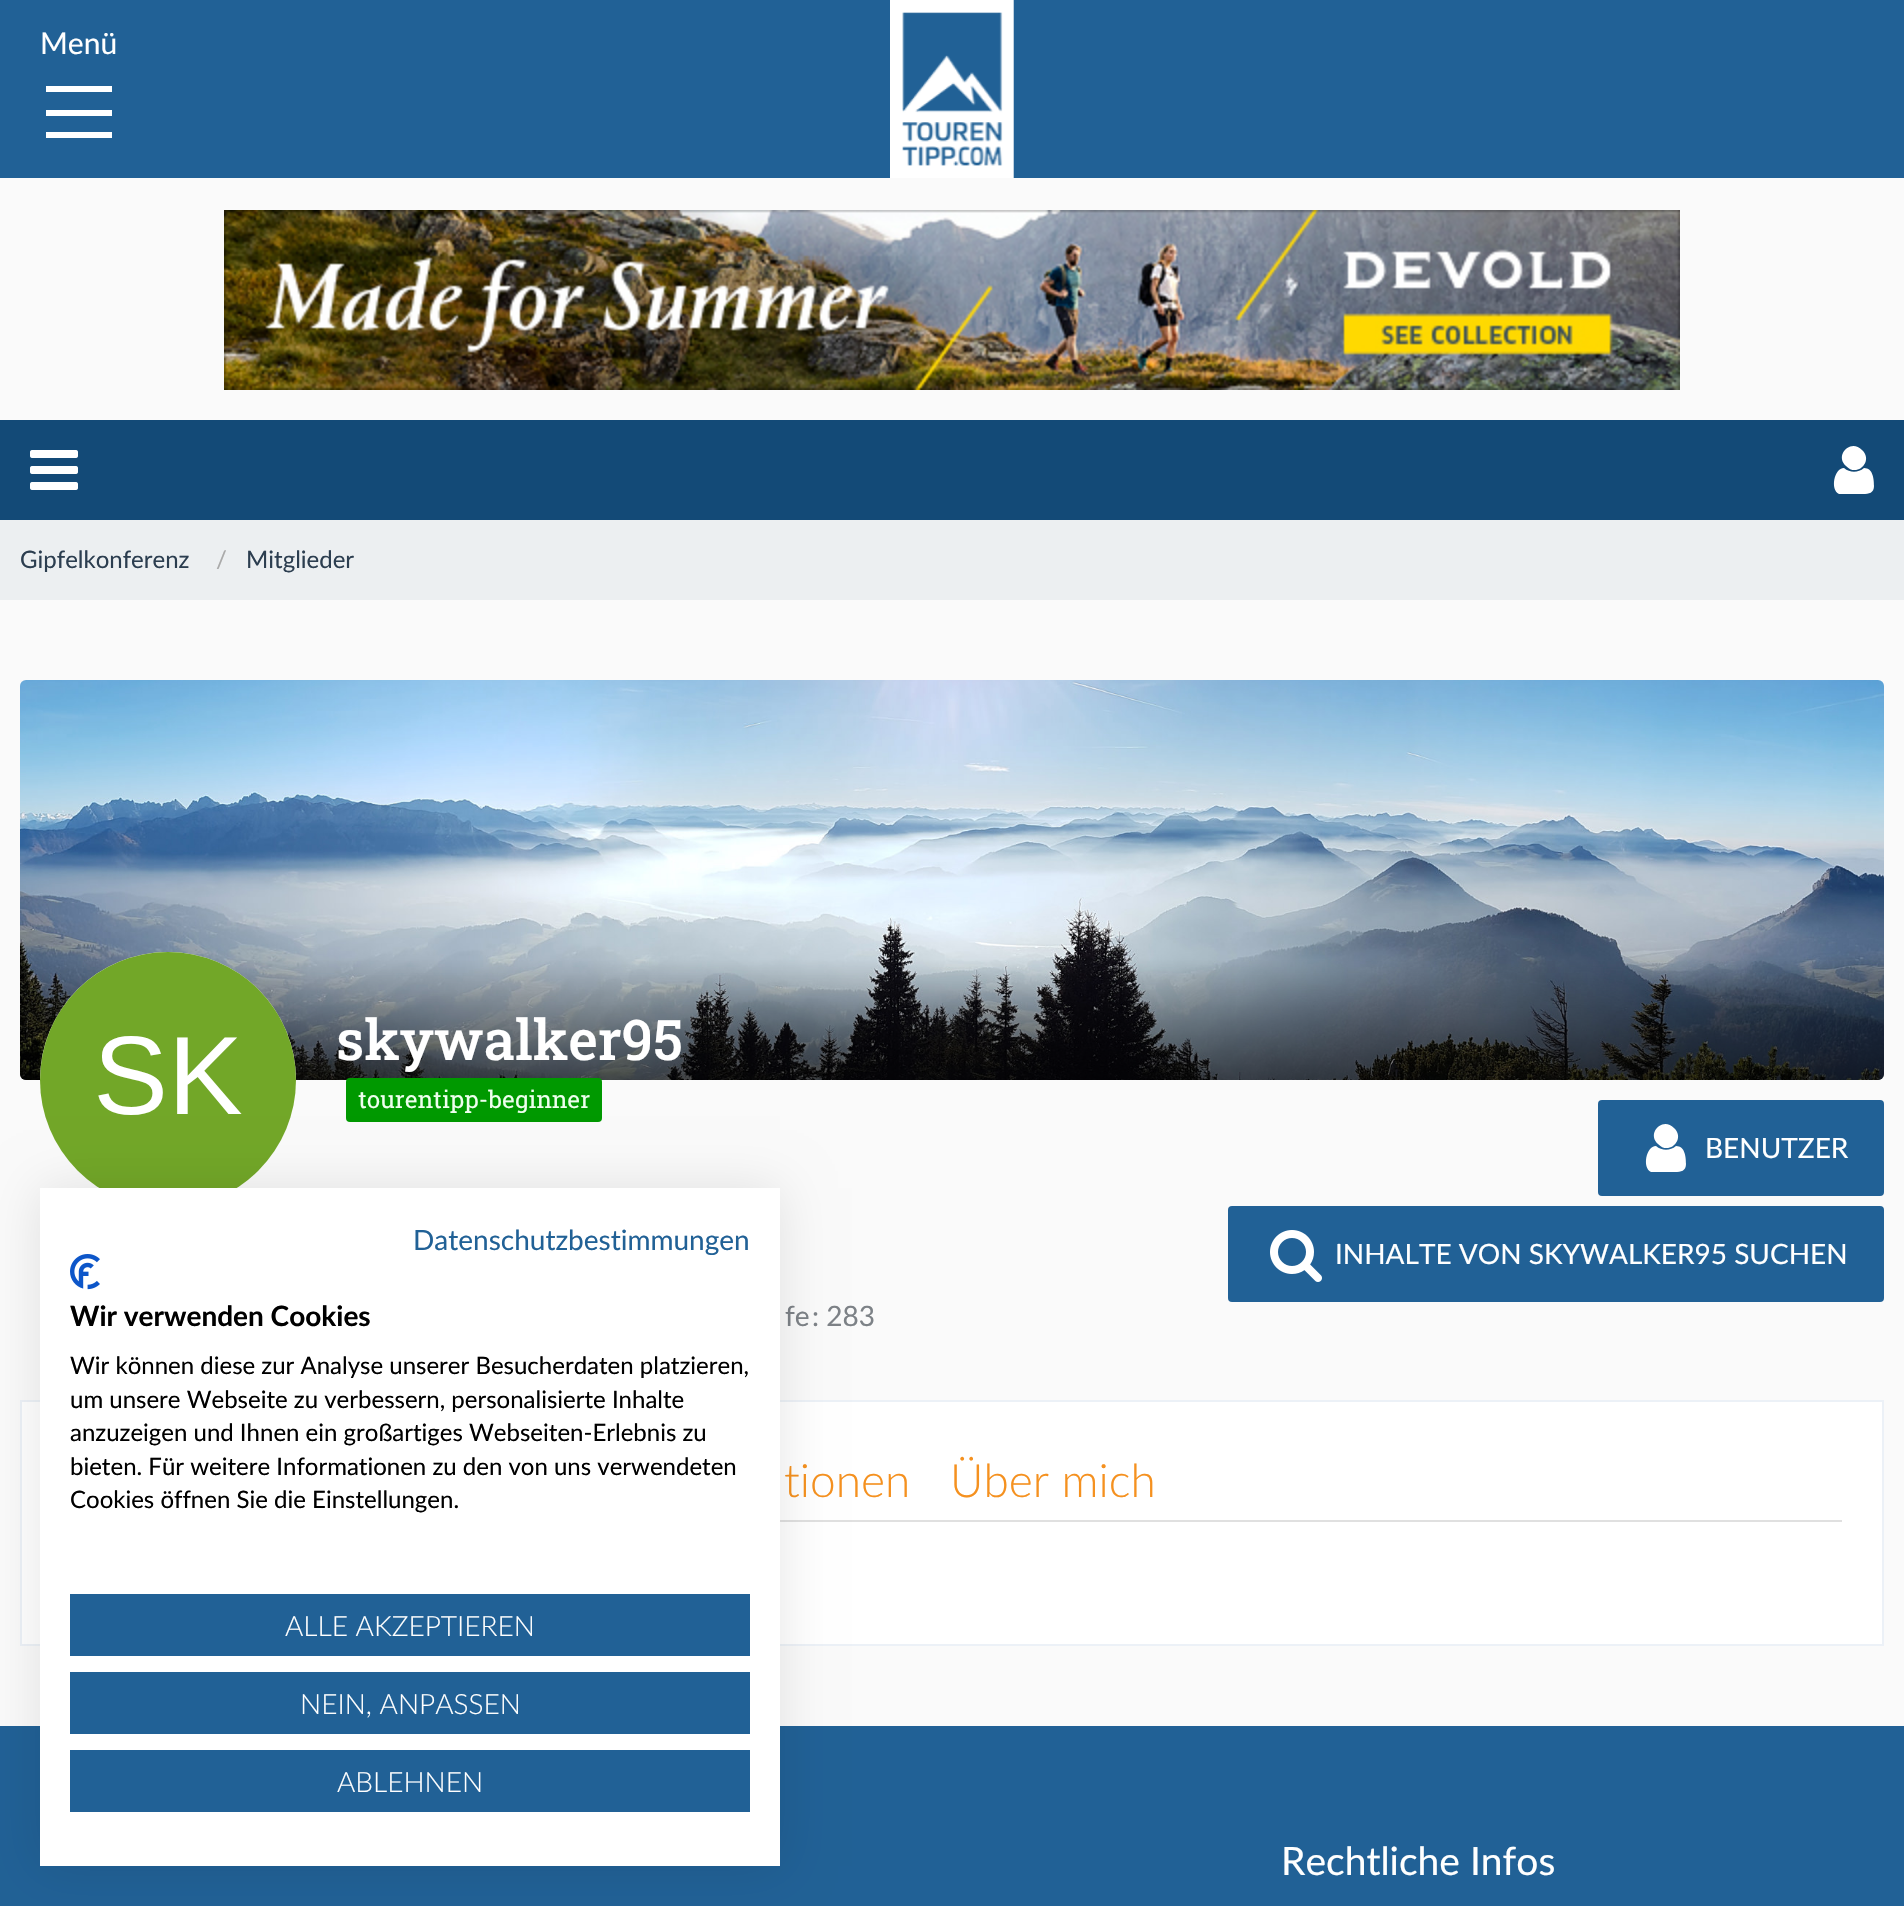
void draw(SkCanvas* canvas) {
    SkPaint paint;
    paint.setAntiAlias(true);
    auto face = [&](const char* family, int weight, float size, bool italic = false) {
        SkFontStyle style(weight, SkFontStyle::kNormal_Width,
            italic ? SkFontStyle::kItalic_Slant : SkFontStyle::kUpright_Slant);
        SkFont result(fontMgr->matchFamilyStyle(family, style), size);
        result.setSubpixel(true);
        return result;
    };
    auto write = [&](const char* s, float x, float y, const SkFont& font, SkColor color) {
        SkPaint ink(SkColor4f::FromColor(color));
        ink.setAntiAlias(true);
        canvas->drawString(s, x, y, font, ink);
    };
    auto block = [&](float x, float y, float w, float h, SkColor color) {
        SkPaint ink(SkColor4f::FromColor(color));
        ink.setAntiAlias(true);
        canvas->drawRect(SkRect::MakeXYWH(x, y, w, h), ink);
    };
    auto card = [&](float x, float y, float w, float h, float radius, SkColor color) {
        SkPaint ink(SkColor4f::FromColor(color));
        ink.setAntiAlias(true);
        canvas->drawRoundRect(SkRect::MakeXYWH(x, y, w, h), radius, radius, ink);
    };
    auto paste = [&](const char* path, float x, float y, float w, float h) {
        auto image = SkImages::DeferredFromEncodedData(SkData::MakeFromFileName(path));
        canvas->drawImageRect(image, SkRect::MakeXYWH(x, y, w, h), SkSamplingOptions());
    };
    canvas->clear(SkColorSetRGB(250, 250, 250));
    block(0, 0, 1904, 178, SkColorSetRGB(33, 97, 150));
    auto kFont1 = face("Lato", 400, 30);
    write("Menü", 40, 54, kFont1, SK_ColorWHITE);
    block(46, 86, 66, 6, SK_ColorWHITE);
    block(46, 110, 66, 6, SK_ColorWHITE);
    block(46, 132, 66, 6, SK_ColorWHITE);
    paste("pic1.png", 890, 0, 124, 178);
    paste("pic2.png", 224, 210, 1456, 180);
    block(0, 420, 1904, 100, SkColorSetRGB(19, 74, 119));
    paste("pic3.png", 30, 450, 48, 40);
    paint.setColor(SK_ColorWHITE);
    canvas->drawPath(SkPathBuilder().moveTo(1874, 486).cubicTo(1874, 493, 1869, 494, 1863, 494).lineTo(1839, 494).cubicTo(1830, 490, 1834, 468, 1844, 468).cubicTo(1850, 473, 1858, 473, 1864, 468).cubicTo(1873, 468, 1874, 479, 1874, 486).close().moveTo(1862, 450).cubicTo(1874, 461, 1857, 478, 1846, 466).cubicTo(1834, 455, 1851, 438, 1862, 450).close().detach(), paint);
    block(0, 520, 1904, 80, SkColorSetRGB(236, 239, 241));
    auto kFont2 = face("Lato", 400, 24);
    write("Gipfelkonferenz", 20, 568, kFont2, SkColorSetRGB(44, 62, 80));
    write("/", 216, 568, kFont2, SkColorSetRGB(170, 170, 170));
    write("Mitglieder", 246, 568, kFont2, SkColorSetRGB(44, 62, 80));
    paste("pic4.png", 20, 680, 1864, 400);
    {
        const SkColor colors[] = {SkColorSetARGB(0, 0, 0, 0), SkColorSetARGB(128, 0, 0, 0)};
        const float stops[] = {0.7f, 1};
        const SkPoint ends[] = {{952, 680}, {952, 1080}};
        paint.setShader(SkGradientShader::MakeLinear(ends, colors, stops, 2, SkTileMode::kClamp));
        paint.setAlpha(255);
    }
    canvas->drawPath(SkPathBuilder().moveTo(20, 680).lineTo(1884, 680).lineTo(1884, 1074).cubicTo(1884, 1077.5f, 1881.5f, 1080, 1878, 1080).lineTo(26, 1080).cubicTo(22.5f, 1080, 20, 1077.5f, 20, 1074).close().detach(), paint);
    paint.setShader(nullptr);
    paint.setColor(SK_ColorWHITE);
    canvas->drawCircle(168, 1080, 128, paint);
    paste("pic5.png", 40, 952, 256, 236);
    auto kFont3 = face("Roboto Slab", 500, 56);
    write("skywalker95", 336, 1060, kFont3, SK_ColorWHITE);
    card(346, 1078, 256, 44, 4, SkColorSetRGB(0, 153, 0));
    auto kFont4 = face("Roboto Slab", 400, 24);
    write("tourentipp-beginner", 358, 1108, kFont4, SkColorSetRGB(238, 255, 238));
    auto kFont5 = face("Lato", 400, 28);
    write("fe", 785, 1326, kFont5, SkColorSetRGB(125, 130, 135));
    write(": 283", 812, 1326, kFont5, SkColorSetRGB(125, 130, 135));
    card(1598, 1100, 286, 96, 4, SkColorSetRGB(33, 97, 150));
    canvas->drawPath(SkPathBuilder().moveTo(1686, 1164).cubicTo(1686, 1171, 1681, 1172, 1675, 1172).lineTo(1651, 1172).cubicTo(1642, 1168, 1646, 1146, 1656, 1146).cubicTo(1662, 1151, 1670, 1151, 1676, 1146).cubicTo(1685, 1146, 1686, 1157, 1686, 1164).close().moveTo(1674, 1128).cubicTo(1686, 1139, 1669, 1156, 1658, 1144).cubicTo(1646, 1133, 1663, 1116, 1674, 1128).close().detach(), paint);
    write("BENUTZER", 1705, 1158, kFont5, SK_ColorWHITE);
    card(1228, 1206, 656, 96, 4, SkColorSetRGB(33, 97, 150));
    paste("pic6.png", 1270, 1230, 52, 52);
    write("INHALTE VON SKYWALKER95 SUCHEN", 1335, 1264, kFont5, SK_ColorWHITE);
    canvas->drawRect(SkRect::MakeXYWH(21, 1401, 1862, 244), paint);
    paint.setStyle(SkPaint::kStroke_Style);
    paint.setStrokeWidth(2);
    paint.setColor(SkColorSetRGB(236, 241, 247));
    canvas->drawRect(SkRect::MakeXYWH(21, 1401, 1862, 244), paint);
    block(780, 1520, 1062, 2, SkColorSetRGB(224, 224, 224));
    auto kFont6 = face("Lato", 300, 46);
    write("tionen", 784, 1497, kFont6, SkColorSetRGB(245, 145, 31));
    write("Über mich", 950, 1497, kFont6, SkColorSetRGB(245, 145, 31));
    block(0, 1726, 1904, 180, SkColorSetRGB(33, 97, 150));
    auto kFont7 = face("Lato", 400, 39);
    write("Rechtliche Infos", 1281, 1875, kFont7, SK_ColorWHITE);
    paint.setStyle(SkPaint::kFill_Style);
    paint.setColor(SkColorSetARGB(26, 0, 0, 0));
    paint.setMaskFilter(SkMaskFilter::MakeBlur(kNormal_SkBlurStyle, 24));
    canvas->drawRect(SkRect::MakeXYWH(40, 1188, 740, 678), paint);
    paint.setMaskFilter(nullptr);
    block(40, 1188, 740, 678, SK_ColorWHITE);
    write("Datenschutzbestimmungen", 413, 1250, kFont5, SkColorSetRGB(33, 97, 150));
    paste("pic7.png", 70, 1254, 30, 36);
    auto kFont8 = face("Lato", 700, 28);
    write("Wir verwenden Cookies", 70, 1326, kFont8, SK_ColorBLACK);
    write("Wir können diese zur Analyse unserer Besucherdaten platzieren,", 70, 1374, kFont2, SK_ColorBLACK);
    write("um unsere Webseite zu verbessern, personalisierte Inhalte", 70, 1408, kFont2, SK_ColorBLACK);
    write("anzuzeigen und Ihnen ein großartiges Webseiten-Erlebnis zu", 70, 1441, kFont2, SK_ColorBLACK);
    write("bieten. Für weitere Informationen zu den von uns verwendeten", 70, 1475, kFont2, SK_ColorBLACK);
    write("Cookies öffnen Sie die Einstellungen.", 70, 1508, kFont2, SK_ColorBLACK);
    block(70, 1594, 680, 62, SkColorSetRGB(33, 97, 150));
    auto kFont9 = face("Lato", 300, 28);
    write("ALLE AKZEPTIEREN", 285, 1636, kFont9, SK_ColorWHITE);
    block(70, 1672, 680, 62, SkColorSetRGB(33, 97, 150));
    write("NEIN, ANPASSEN", 300, 1714, kFont9, SK_ColorWHITE);
    block(70, 1750, 680, 62, SkColorSetRGB(33, 97, 150));
    write("ABLEHNEN", 337, 1792, kFont9, SK_ColorWHITE);
}
